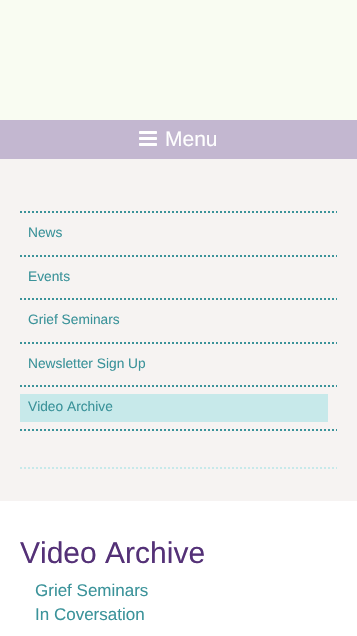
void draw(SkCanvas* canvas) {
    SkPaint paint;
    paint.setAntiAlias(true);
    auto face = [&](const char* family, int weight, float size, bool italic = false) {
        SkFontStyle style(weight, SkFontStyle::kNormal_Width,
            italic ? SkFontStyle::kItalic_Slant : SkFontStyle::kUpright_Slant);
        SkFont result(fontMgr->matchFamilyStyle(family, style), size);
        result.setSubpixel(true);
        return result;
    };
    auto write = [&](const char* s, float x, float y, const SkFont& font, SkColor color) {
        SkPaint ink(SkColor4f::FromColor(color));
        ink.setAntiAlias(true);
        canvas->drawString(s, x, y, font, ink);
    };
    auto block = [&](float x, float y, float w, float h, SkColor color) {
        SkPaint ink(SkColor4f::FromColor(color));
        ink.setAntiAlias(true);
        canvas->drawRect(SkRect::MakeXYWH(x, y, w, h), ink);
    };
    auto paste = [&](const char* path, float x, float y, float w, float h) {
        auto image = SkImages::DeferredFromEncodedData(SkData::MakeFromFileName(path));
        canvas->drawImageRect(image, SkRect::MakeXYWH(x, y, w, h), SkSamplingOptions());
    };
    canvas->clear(SkColorSetRGB(249, 252, 242));
    block(0, 120, 357, 39, SkColorSetRGB(195, 183, 208));
    paste("pic1.png", 139, 131, 18, 15);
    auto kFont1 = face("Liberation Sans", 400, 21);
    write("Menu", 165, 146, kFont1, SK_ColorWHITE);
    block(0, 501, 357, 135, SK_ColorWHITE);
    block(0, 159, 357, 342, SkColorSetRGB(246, 243, 242));
    paint.setStyle(SkPaint::kStroke_Style);
    paint.setStrokeWidth(2);
    paint.setColor(SkColorSetRGB(199, 233, 234));
    paint.setPathEffect(SkDashPathEffect::Make({{2, 2}}, 0));
    canvas->drawPath(SkPathBuilder().moveTo(20, 468).lineTo(337, 468).detach(), paint);
    paint.setPathEffect(nullptr);
    paint.setColor(SkColorSetRGB(59, 147, 154));
    paint.setPathEffect(SkDashPathEffect::Make({{2, 2}}, 0));
    canvas->drawPath(SkPathBuilder().moveTo(20, 212).lineTo(337, 212).detach(), paint);
    paint.setPathEffect(nullptr);
    auto kFont2 = face("Liberation Sans", 400, 13.75f);
    write("News", 28, 237, kFont2, SkColorSetRGB(59, 147, 154));
    paint.setPathEffect(SkDashPathEffect::Make({{2, 2}}, 0));
    canvas->drawPath(SkPathBuilder().moveTo(20, 256).lineTo(337, 256).detach(), paint);
    paint.setPathEffect(nullptr);
    write("Events", 28, 281, kFont2, SkColorSetRGB(59, 147, 154));
    paint.setPathEffect(SkDashPathEffect::Make({{2, 2}}, 0));
    canvas->drawPath(SkPathBuilder().moveTo(20, 299).lineTo(337, 299).detach(), paint);
    paint.setPathEffect(nullptr);
    write("Grief Seminars", 28, 324, kFont2, SkColorSetRGB(59, 147, 154));
    paint.setPathEffect(SkDashPathEffect::Make({{2, 2}}, 0));
    canvas->drawPath(SkPathBuilder().moveTo(20, 343).lineTo(337, 343).detach(), paint);
    paint.setPathEffect(nullptr);
    write("Newsletter Sign Up", 28, 368, kFont2, SkColorSetRGB(59, 147, 154));
    paint.setPathEffect(SkDashPathEffect::Make({{2, 2}}, 0));
    canvas->drawPath(SkPathBuilder().moveTo(20, 386).lineTo(337, 386).detach(), paint);
    paint.setPathEffect(nullptr);
    paint.setPathEffect(SkDashPathEffect::Make({{2, 2}}, 0));
    canvas->drawPath(SkPathBuilder().moveTo(20, 430).lineTo(337, 430).detach(), paint);
    paint.setPathEffect(nullptr);
    block(20, 394, 308, 28, SkColorSetRGB(199, 233, 234));
    write("Video Archive", 28, 411, kFont2, SkColorSetRGB(59, 147, 154));
    auto kFont3 = face("Liberation Sans", 400, 30);
    write("Video Archive", 20, 563, kFont3, SkColorSetRGB(84, 49, 119));
    auto kFont4 = face("Liberation Sans", 400, 17);
    write("Grief Seminars", 35, 596, kFont4, SkColorSetRGB(59, 147, 154));
    write("In Coversation", 35, 620, kFont4, SkColorSetRGB(59, 147, 154));
}
